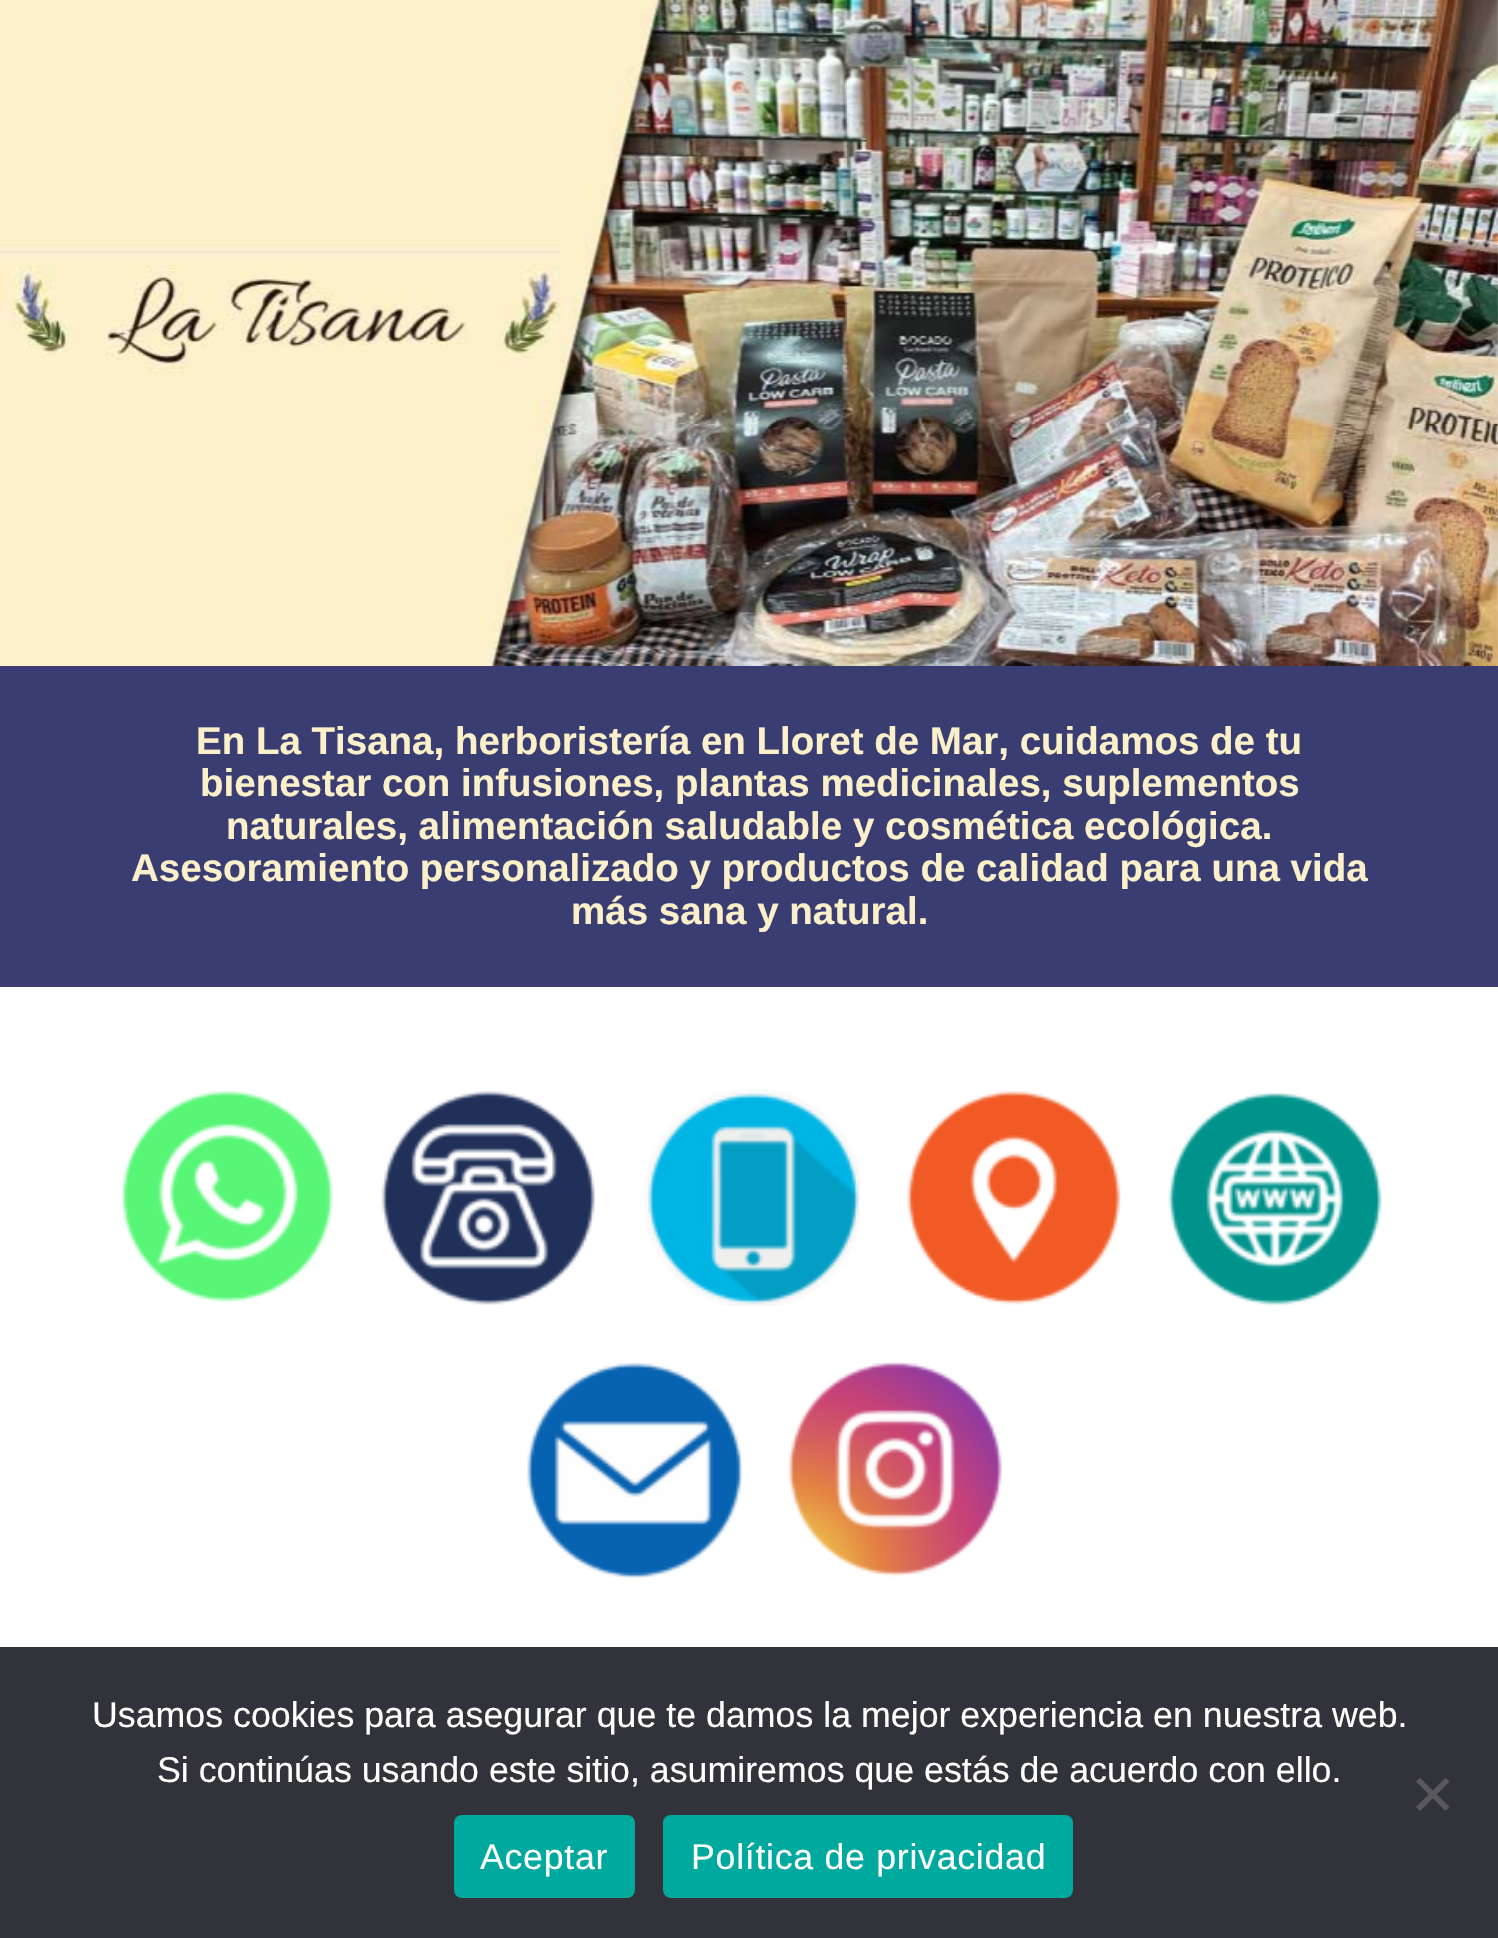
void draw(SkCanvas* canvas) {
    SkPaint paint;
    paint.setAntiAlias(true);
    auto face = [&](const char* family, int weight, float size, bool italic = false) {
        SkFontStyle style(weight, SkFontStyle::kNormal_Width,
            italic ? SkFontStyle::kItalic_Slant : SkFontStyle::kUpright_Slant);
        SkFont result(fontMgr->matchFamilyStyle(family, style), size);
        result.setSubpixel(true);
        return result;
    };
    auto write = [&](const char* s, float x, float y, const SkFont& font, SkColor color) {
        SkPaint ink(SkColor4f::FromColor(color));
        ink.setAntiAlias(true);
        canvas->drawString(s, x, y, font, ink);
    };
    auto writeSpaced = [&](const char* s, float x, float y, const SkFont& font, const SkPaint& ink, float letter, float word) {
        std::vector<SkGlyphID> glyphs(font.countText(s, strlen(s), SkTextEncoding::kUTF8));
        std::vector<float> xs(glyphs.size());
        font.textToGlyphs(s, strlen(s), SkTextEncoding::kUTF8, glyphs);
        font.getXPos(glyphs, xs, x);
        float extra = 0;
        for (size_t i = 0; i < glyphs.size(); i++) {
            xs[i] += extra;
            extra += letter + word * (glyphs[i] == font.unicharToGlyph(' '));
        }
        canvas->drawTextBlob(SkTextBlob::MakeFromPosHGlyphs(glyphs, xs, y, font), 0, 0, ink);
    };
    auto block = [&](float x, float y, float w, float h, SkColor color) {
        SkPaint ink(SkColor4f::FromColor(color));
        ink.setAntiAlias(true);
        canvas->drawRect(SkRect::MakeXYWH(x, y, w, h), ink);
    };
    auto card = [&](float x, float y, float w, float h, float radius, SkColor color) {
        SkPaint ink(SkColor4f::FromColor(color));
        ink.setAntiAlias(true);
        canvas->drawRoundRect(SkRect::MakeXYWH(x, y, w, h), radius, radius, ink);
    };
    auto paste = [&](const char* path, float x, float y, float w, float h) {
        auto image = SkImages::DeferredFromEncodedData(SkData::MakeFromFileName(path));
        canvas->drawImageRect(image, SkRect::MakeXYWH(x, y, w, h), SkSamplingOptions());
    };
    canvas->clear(SK_ColorWHITE);
    paste("pic1.png", 0, 0, 1498, 666);
    block(0, 666, 1498, 321, SkColorSetRGB(57, 61, 114));
    auto kFont1 = face("Liberation Sans", 700, 38.5f);
    write("En La Tisana, herboristería en Lloret de Mar, cuidamos de tu", 196, 754, kFont1, SkColorSetRGB(252, 240, 202));
    write("bienestar con infusiones, plantas medicinales, suplementos", 200, 796, kFont1, SkColorSetRGB(252, 240, 202));
    write("naturales, alimentación saludable y cosmética ecológica.", 226, 839, kFont1, SkColorSetRGB(252, 240, 202));
    write("Asesoramiento personalizado y productos de calidad para una vida", 131, 881, kFont1, SkColorSetRGB(252, 240, 202));
    write("más sana y natural.", 571, 924, kFont1, SkColorSetRGB(252, 240, 202));
    paste("pic2.png", 120, 1091, 214, 211);
    paste("pic3.png", 381, 1091, 214, 214);
    paste("pic4.png", 644, 1089, 216, 217);
    paste("pic5.png", 906, 1091, 216, 214);
    paste("pic6.png", 1168, 1092, 214, 214);
    paste("pic7.png", 527, 1363, 216, 216);
    paste("pic8.png", 788, 1361, 214, 216);
    block(0, 1647, 1498, 291, SkColorSetRGB(50, 50, 58));
    auto kFont2 = face("Liberation Sans", 400, 35.75f);
    write("Usamos cookies para asegurar que te damos la mejor experiencia en nuestra web.", 92, 1727, kFont2, SK_ColorWHITE);
    write("Si continúas usando este sitio, asumiremos que estás de acuerdo con ello.", 157, 1782, kFont2, SK_ColorWHITE);
    paint.setColor(SkColorSetRGB(89, 89, 93));
    canvas->drawPath(SkPathBuilder().moveTo(1445.5f, 1778).lineTo(1449.5f, 1781.5f).lineTo(1420, 1811).lineTo(1416, 1807).close().detach(), paint);
    canvas->drawPath(SkPathBuilder().moveTo(1416, 1781.5f).lineTo(1420, 1778).lineTo(1449.5f, 1807).lineTo(1445.5f, 1811).close().detach(), paint);
    card(454, 1815, 181, 83, 8, SkColorSetRGB(0, 169, 157));
    paint.setColor(SK_ColorWHITE);
    writeSpaced("Aceptar", 480, 1869, kFont2, paint, 0.7f, 0);
    card(663, 1815, 410, 83, 8, SkColorSetRGB(0, 169, 157));
    writeSpaced("Política de privacidad", 691, 1869, kFont2, paint, 0.7f, 0);
}
